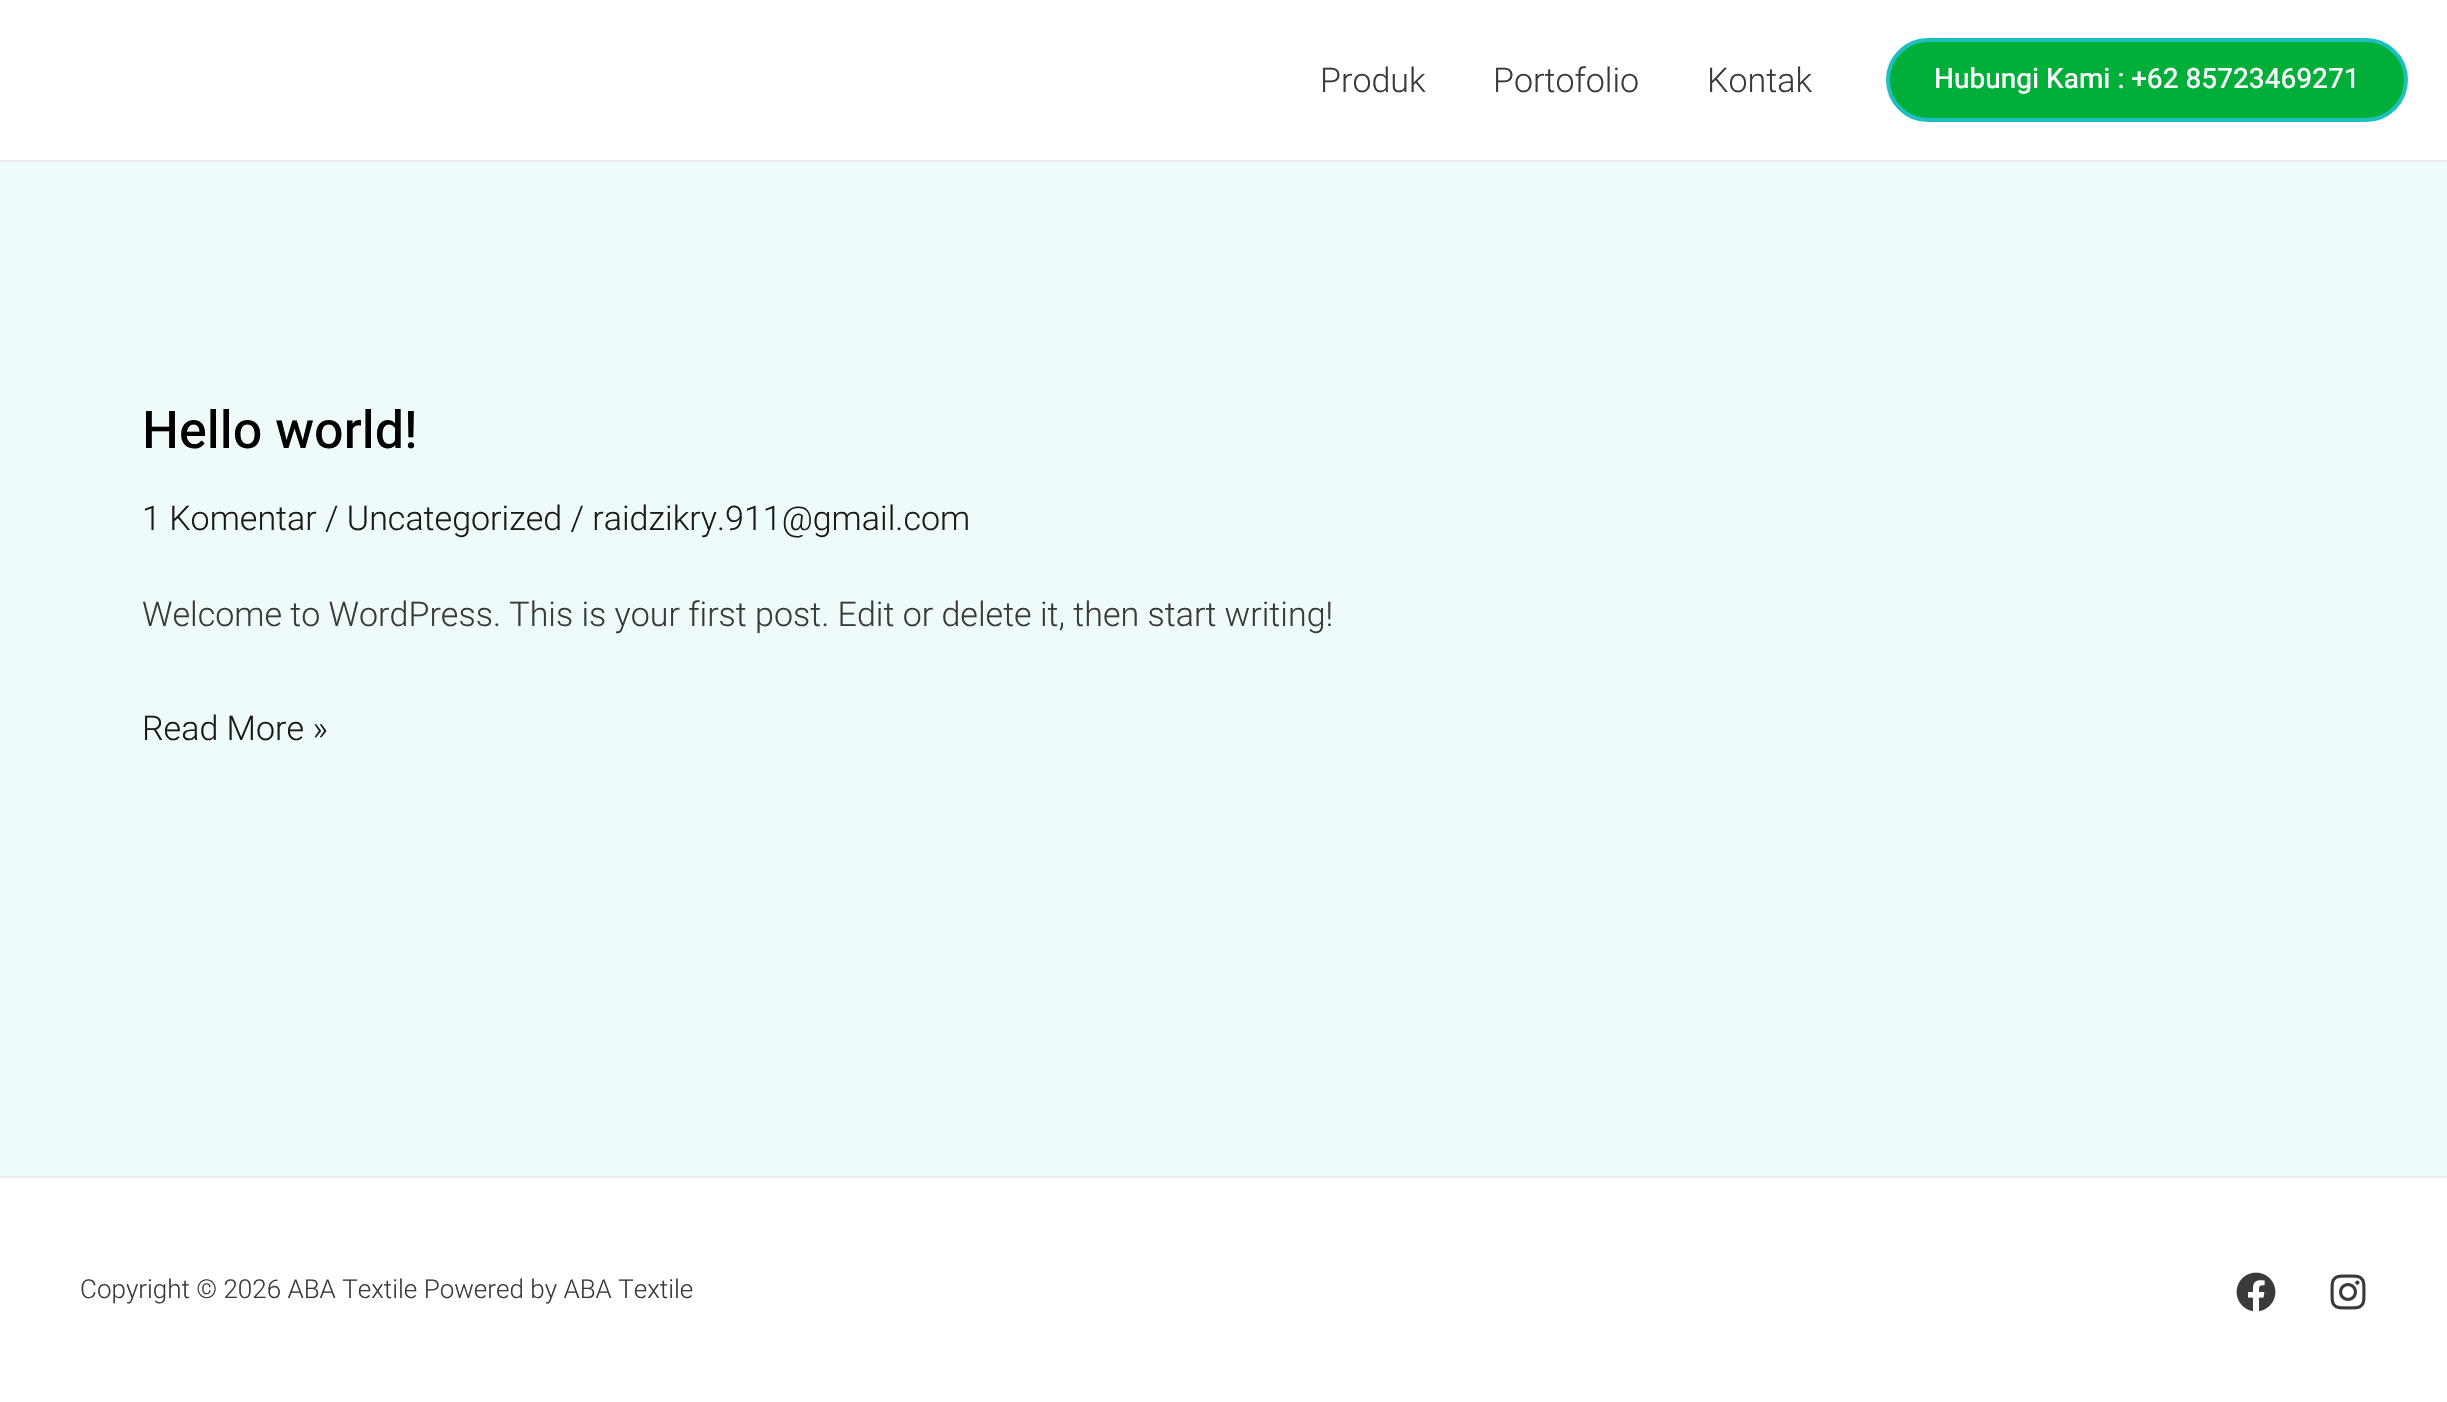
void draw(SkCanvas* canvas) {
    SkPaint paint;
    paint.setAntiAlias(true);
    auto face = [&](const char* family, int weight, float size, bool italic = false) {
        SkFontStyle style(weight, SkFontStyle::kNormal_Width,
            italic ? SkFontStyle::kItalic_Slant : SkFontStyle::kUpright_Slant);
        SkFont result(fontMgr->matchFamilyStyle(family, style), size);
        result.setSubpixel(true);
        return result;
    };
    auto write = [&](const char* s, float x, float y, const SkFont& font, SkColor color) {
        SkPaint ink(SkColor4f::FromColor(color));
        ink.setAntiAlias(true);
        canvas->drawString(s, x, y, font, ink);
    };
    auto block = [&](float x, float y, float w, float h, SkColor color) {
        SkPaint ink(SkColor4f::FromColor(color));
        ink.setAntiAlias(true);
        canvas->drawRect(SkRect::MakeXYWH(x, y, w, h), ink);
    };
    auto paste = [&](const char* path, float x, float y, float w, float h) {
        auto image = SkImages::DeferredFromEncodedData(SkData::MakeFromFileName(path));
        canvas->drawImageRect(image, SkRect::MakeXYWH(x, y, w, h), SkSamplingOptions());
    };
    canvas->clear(SkColorSetRGB(239, 250, 250));
    block(0, 0, 2447, 160, SK_ColorWHITE);
    block(0, 160, 2447, 2, SkColorSetRGB(234, 234, 234));
    auto kFont1 = face("Roboto", 300, 34);
    write("Produk", 1320, 92, kFont1, SkColorSetRGB(58, 58, 58));
    write("Portofolio", 1493, 92, kFont1, SkColorSetRGB(58, 58, 58));
    write("Kontak", 1707, 92, kFont1, SkColorSetRGB(58, 58, 58));
    paint.setColor(SkColorSetRGB(0, 175, 58));
    canvas->drawRoundRect(SkRect::MakeXYWH(1888, 40, 518, 80), 40, 40, paint);
    paint.setStyle(SkPaint::kStroke_Style);
    paint.setStrokeWidth(4);
    paint.setColor(SkColorSetRGB(29, 191, 193));
    canvas->drawRoundRect(SkRect::MakeXYWH(1888, 40, 518, 80), 40, 40, paint);
    auto kFont2 = face("Heebo", 500, 28);
    write("Hubungi Kami : +62 85723469271", 1934, 88, kFont2, SK_ColorWHITE);
    auto kFont3 = face("Heebo", 500, 52);
    write("Hello world!", 142, 448, kFont3, SK_ColorBLACK);
    write("1 Komentar / Uncategorized / raidzikry.911@gmail.com", 142, 530, kFont1, SkColorSetRGB(26, 26, 26));
    write("Welcome to WordPress. This is your first post. Edit or delete it, then start writing!", 142, 626, kFont1, SkColorSetRGB(58, 58, 58));
    write("Read More »", 142, 740, kFont1, SkColorSetRGB(26, 26, 26));
    block(0, 1178, 2447, 224, SK_ColorWHITE);
    block(0, 1176, 2447, 2, SkColorSetRGB(237, 237, 237));
    auto kFont4 = face("Roboto", 300, 26);
    write("Copyright © 2026 ABA Textile Powered by ABA Textile", 80, 1298, kFont4, SkColorSetRGB(58, 58, 58));
    paste("pic1.png", 2236, 1272, 40, 40);
    paste("pic2.png", 2330, 1274, 36, 36);
}
